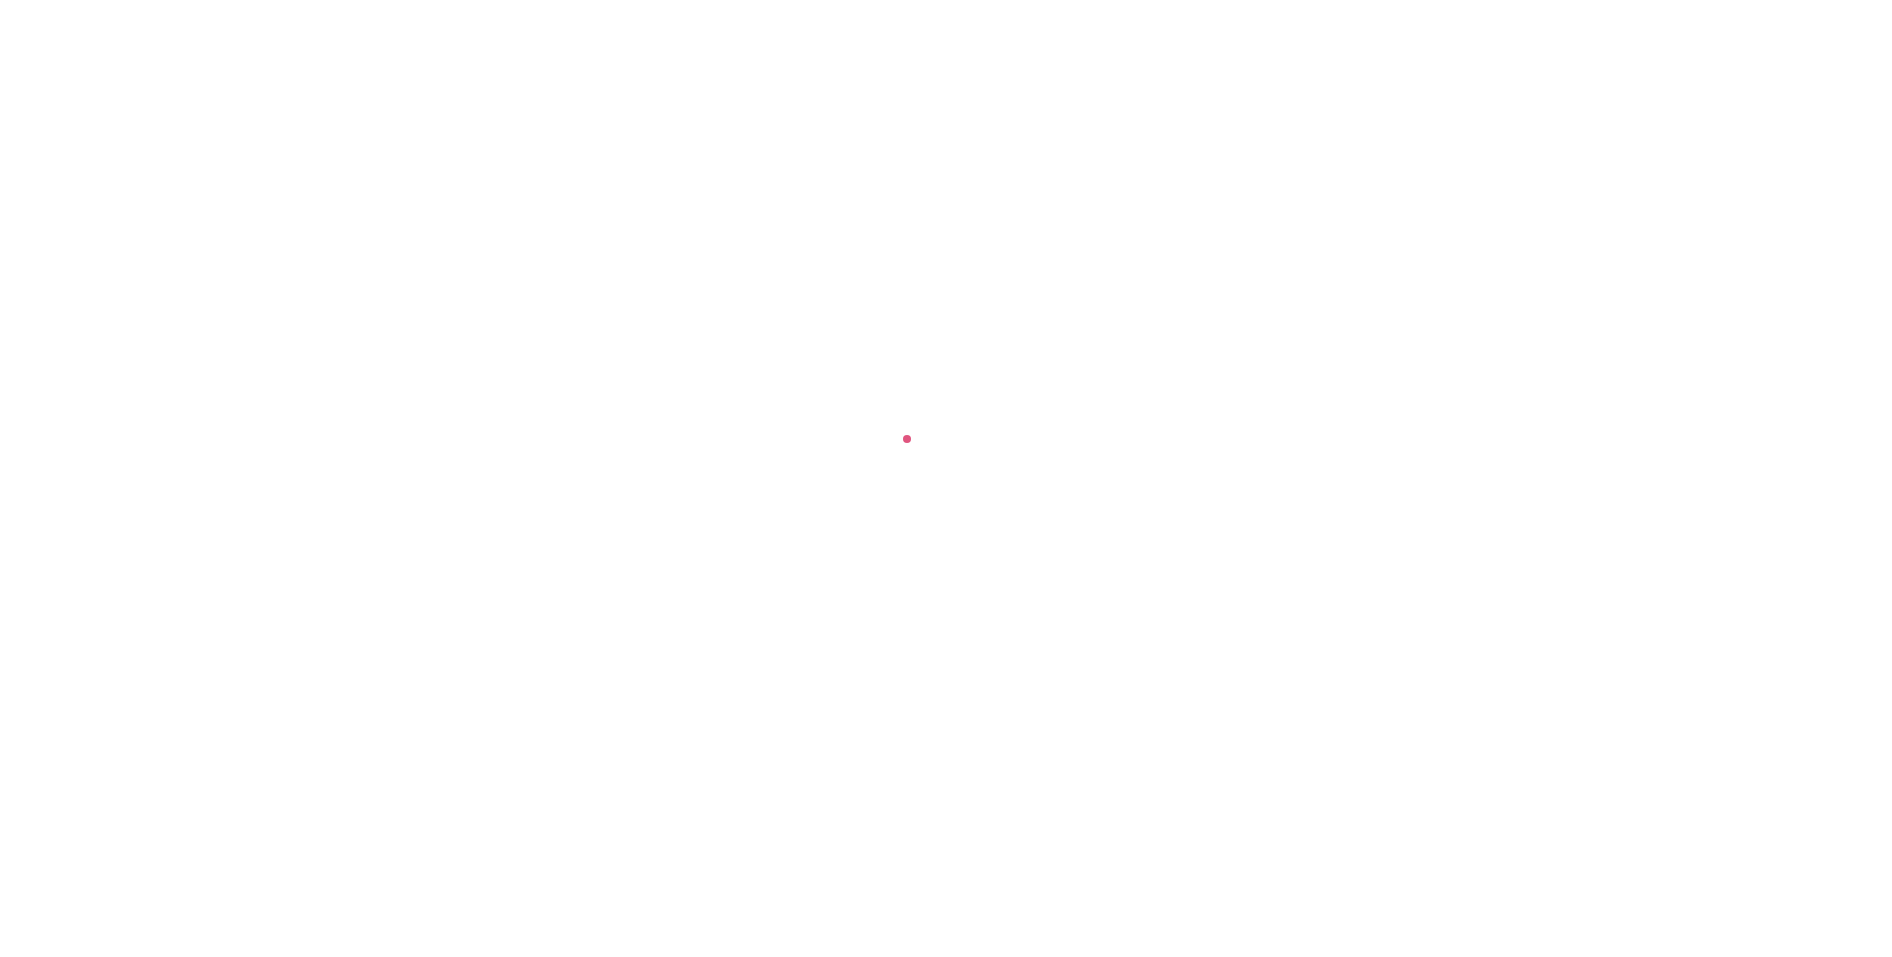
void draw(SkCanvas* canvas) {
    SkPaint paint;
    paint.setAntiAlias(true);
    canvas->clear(SK_ColorWHITE);
    paint.setColor(SkColorSetRGB(224, 85, 127));
    canvas->drawCircle(907, 439, 4, paint);
}
